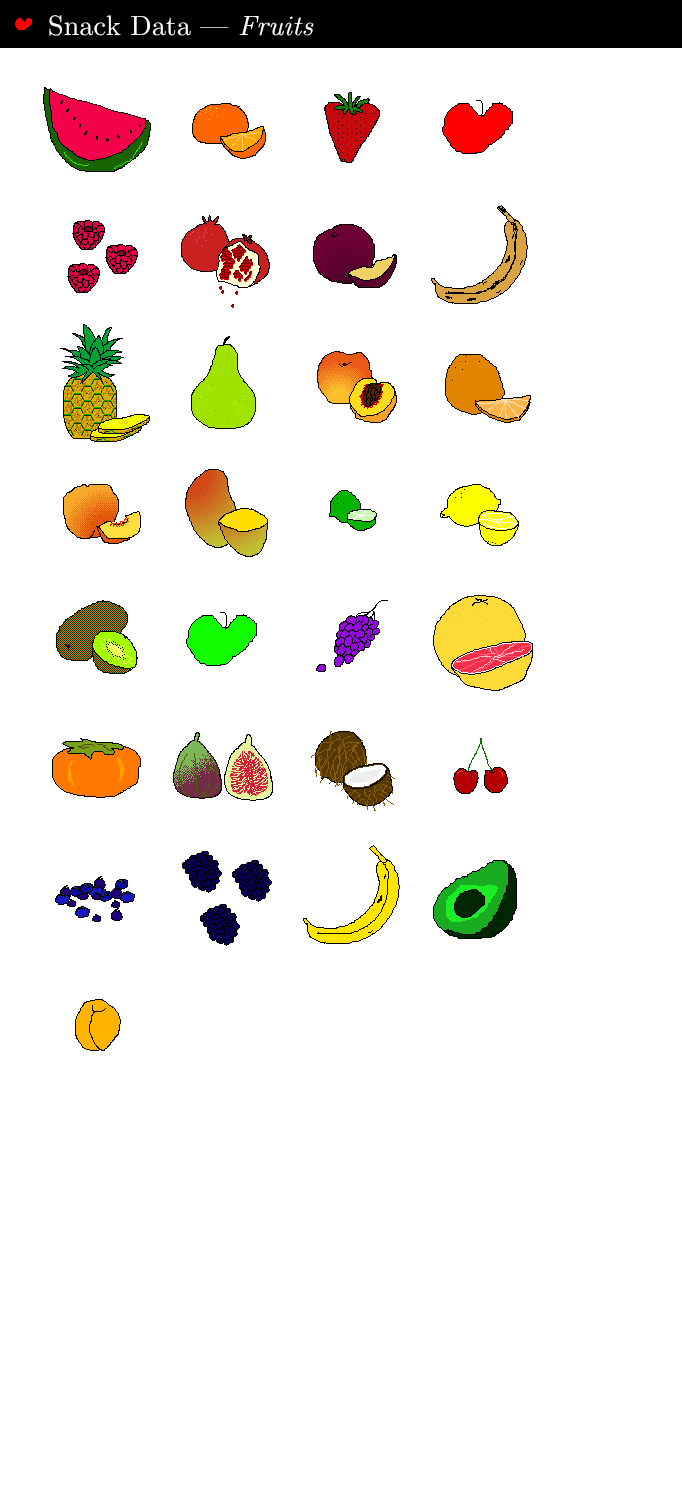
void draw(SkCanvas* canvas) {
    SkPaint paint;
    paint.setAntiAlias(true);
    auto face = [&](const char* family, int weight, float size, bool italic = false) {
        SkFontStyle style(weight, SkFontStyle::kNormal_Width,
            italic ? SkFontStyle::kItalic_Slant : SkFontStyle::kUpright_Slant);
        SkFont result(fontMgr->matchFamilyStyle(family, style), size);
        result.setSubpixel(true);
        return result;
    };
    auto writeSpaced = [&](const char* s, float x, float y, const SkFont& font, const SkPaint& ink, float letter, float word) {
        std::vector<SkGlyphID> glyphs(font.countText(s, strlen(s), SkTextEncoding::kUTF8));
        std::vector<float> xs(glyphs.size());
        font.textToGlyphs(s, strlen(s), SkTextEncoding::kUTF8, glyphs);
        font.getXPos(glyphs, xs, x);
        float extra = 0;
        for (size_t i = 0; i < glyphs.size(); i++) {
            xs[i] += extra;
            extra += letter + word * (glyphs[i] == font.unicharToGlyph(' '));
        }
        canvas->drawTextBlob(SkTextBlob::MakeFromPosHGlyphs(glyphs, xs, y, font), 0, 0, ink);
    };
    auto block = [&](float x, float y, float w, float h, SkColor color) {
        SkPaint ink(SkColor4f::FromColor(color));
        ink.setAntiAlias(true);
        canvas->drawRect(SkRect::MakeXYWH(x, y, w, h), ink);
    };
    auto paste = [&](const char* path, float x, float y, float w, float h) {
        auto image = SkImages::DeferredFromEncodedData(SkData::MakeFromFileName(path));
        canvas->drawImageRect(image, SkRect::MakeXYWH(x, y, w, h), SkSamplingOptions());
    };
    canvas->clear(SK_ColorWHITE);
    block(0, 0, 682, 48, SK_ColorBLACK);
    paste("pic1.png", 15, 18, 17, 12);
    auto kFont1 = face("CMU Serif", 400, 28);
    paint.setColor(SK_ColorWHITE);
    writeSpaced("Snack Data —", 48, 35, kFont1, paint, 0.1f, 0);
    auto kFont2 = face("CMU Serif", 500, 28, true);
    writeSpaced("Fruits", 238, 35, kFont2, paint, 0.1f, 0);
    paste("pic2.png", 43, 87, 108, 85);
    paste("pic3.png", 192, 103, 74, 56);
    paste("pic4.png", 324, 92, 56, 71);
    paste("pic5.png", 442, 100, 71, 54);
    paste("pic6.png", 67, 220, 71, 73);
    paste("pic7.png", 181, 215, 89, 93);
    paste("pic8.png", 313, 224, 84, 64);
    paste("pic9.png", 431, 205, 97, 99);
    paste("pic10.png", 60, 324, 90, 118);
    paste("pic11.png", 191, 336, 65, 93);
    paste("pic12.png", 317, 351, 80, 72);
    paste("pic13.png", 445, 354, 86, 69);
    paste("pic14.png", 63, 484, 78, 60);
    paste("pic15.png", 185, 469, 83, 88);
    paste("pic16.png", 329, 490, 48, 41);
    paste("pic17.png", 440, 484, 79, 62);
    paste("pic18.png", 56, 600, 82, 74);
    paste("pic19.png", 186, 612, 71, 54);
    paste("pic20.png", 316, 600, 72, 72);
    paste("pic21.png", 433, 595, 100, 96);
    paste("pic22.png", 52, 738, 89, 60);
    paste("pic23.png", 173, 732, 100, 69);
    paste("pic24.png", 311, 731, 84, 80);
    paste("pic25.png", 453, 738, 55, 56);
    paste("pic26.png", 55, 876, 80, 46);
    paste("pic27.png", 182, 851, 90, 95);
    paste("pic28.png", 303, 845, 97, 99);
    paste("pic29.png", 433, 860, 84, 79);
    paste("pic30.png", 75, 999, 46, 52);
}
